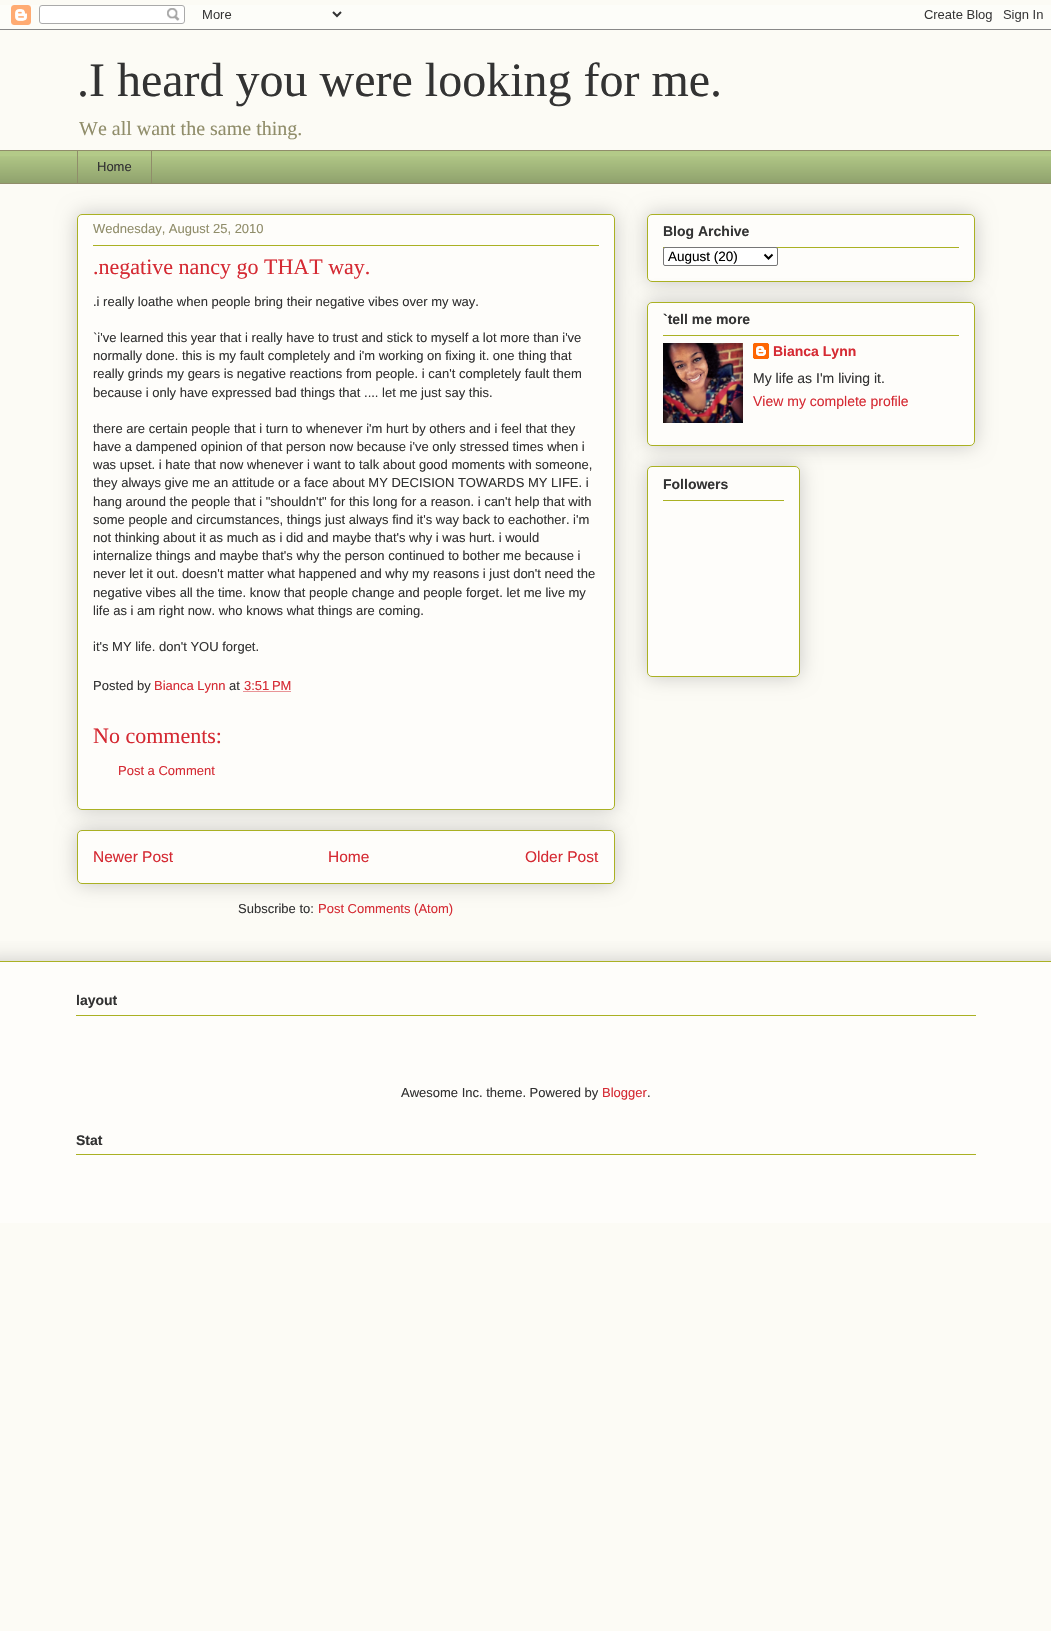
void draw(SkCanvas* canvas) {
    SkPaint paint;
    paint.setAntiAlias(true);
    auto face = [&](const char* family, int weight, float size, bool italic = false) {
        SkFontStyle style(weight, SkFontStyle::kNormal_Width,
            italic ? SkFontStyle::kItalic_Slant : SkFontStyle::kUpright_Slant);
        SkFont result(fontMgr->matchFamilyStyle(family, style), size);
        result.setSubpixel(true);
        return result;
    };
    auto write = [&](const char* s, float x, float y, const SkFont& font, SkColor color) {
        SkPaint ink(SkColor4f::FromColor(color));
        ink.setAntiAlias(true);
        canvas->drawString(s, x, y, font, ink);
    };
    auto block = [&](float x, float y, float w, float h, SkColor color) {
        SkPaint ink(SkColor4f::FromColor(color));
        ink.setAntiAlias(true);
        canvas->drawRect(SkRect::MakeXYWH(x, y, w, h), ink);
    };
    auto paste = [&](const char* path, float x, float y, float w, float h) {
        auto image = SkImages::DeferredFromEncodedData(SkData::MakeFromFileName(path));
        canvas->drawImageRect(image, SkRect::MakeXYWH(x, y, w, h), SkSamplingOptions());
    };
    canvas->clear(SkColorSetRGB(252, 251, 245));
    paste("pic1.png", 0, 5, 1051, 25);
    auto kFont1 = face("Liberation Serif", 400, 48);
    write(".I heard you were looking for me.", 77, 96, kFont1, SkColorSetRGB(51, 51, 51));
    auto kFont2 = face("Liberation Serif", 400, 20);
    write("We all want the same thing.", 79, 135, kFont2, SkColorSetRGB(144, 141, 106));
    block(0, 151, 1051, 32, SkColorSetRGB(179, 202, 136));
    paste("pic2.png", 0, 156, 1051, 27);
    block(0, 150, 1051, 1, SkColorSetRGB(144, 141, 106));
    paint.setStyle(SkPaint::kStroke_Style);
    paint.setStrokeWidth(1);
    paint.setColor(SkColorSetRGB(144, 141, 106));
    canvas->drawRect(SkRect::MakeXYWH(77.5f, 150.5f, 74, 33), paint);
    auto kFont3 = face("Liberation Sans", 400, 13);
    write("Home", 97, 171, kFont3, SkColorSetRGB(51, 51, 51));
    block(0, 183, 1051, 1, SkColorSetRGB(144, 141, 106));
    paint.setStyle(SkPaint::kFill_Style);
    paint.setColor(SkColorSetARGB(51, 0, 0, 0));
    paint.setMaskFilter(SkMaskFilter::MakeBlur(kNormal_SkBlurStyle, 10));
    canvas->drawRoundRect(SkRect::MakeXYWH(77, 830, 538, 54), 5, 5, paint);
    paint.setMaskFilter(nullptr);
    paint.setColor(SkColorSetRGB(254, 253, 250));
    canvas->drawRoundRect(SkRect::MakeXYWH(77.5f, 830.5f, 537, 53), 4.5f, 4.5f, paint);
    paint.setStyle(SkPaint::kStroke_Style);
    paint.setColor(SkColorSetRGB(170, 177, 35));
    canvas->drawRoundRect(SkRect::MakeXYWH(77.5f, 830.5f, 537, 53), 4.5f, 4.5f, paint);
    paint.setStyle(SkPaint::kFill_Style);
    paint.setColor(SkColorSetARGB(51, 0, 0, 0));
    paint.setMaskFilter(SkMaskFilter::MakeBlur(kNormal_SkBlurStyle, 10));
    canvas->drawRoundRect(SkRect::MakeXYWH(77, 214, 538, 596), 5, 5, paint);
    paint.setMaskFilter(nullptr);
    paint.setColor(SkColorSetRGB(254, 253, 250));
    canvas->drawRoundRect(SkRect::MakeXYWH(77.5f, 214.5f, 537, 595), 4.5f, 4.5f, paint);
    paint.setStyle(SkPaint::kStroke_Style);
    paint.setColor(SkColorSetRGB(170, 177, 35));
    canvas->drawRoundRect(SkRect::MakeXYWH(77.5f, 214.5f, 537, 595), 4.5f, 4.5f, paint);
    write("Wednesday, August 25, 2010", 93, 233, kFont3, SkColorSetRGB(144, 141, 106));
    block(93, 245, 506, 1, SkColorSetRGB(170, 177, 35));
    auto kFont4 = face("Liberation Serif", 400, 22);
    write(".negative nancy go THAT way.", 93, 274, kFont4, SkColorSetRGB(213, 42, 51));
    write(".i really loathe when people bring their negative vibes over my way.", 93, 306, kFont3, SkColorSetRGB(51, 51, 51));
    write("`i've learned this year that i really have to trust and stick to myself a lot more than i've", 93, 342, kFont3, SkColorSetRGB(51, 51, 51));
    write("normally done. this is my fault completely and i'm working on fixing it. one thing that", 93, 360, kFont3, SkColorSetRGB(51, 51, 51));
    write("really grinds my gears is negative reactions from people. i can't completely fault them", 93, 378, kFont3, SkColorSetRGB(51, 51, 51));
    write("because i only have expressed bad things that .... let me just say this.", 93, 397, kFont3, SkColorSetRGB(51, 51, 51));
    write("there are certain people that i turn to whenever i'm hurt by others and i feel that they", 93, 433, kFont3, SkColorSetRGB(51, 51, 51));
    write("have a dampened opinion of that person now because i've only stressed times when i", 93, 451, kFont3, SkColorSetRGB(51, 51, 51));
    write("was upset. i hate that now whenever i want to talk about good moments with someone,", 93, 469, kFont3, SkColorSetRGB(51, 51, 51));
    write("they always give me an attitude or a face about MY DECISION TOWARDS MY LIFE. i", 93, 487, kFont3, SkColorSetRGB(51, 51, 51));
    write("hang around the people that i \"shouldn't\" for this long for a reason. i can't help that with", 93, 506, kFont3, SkColorSetRGB(51, 51, 51));
    write("some people and circumstances, things just always find it's way back to eachother. i'm", 93, 524, kFont3, SkColorSetRGB(51, 51, 51));
    write("not thinking about it as much as i did and maybe that's why i was hurt. i would", 93, 542, kFont3, SkColorSetRGB(51, 51, 51));
    write("internalize things and maybe that's why the person continued to bother me because i", 93, 560, kFont3, SkColorSetRGB(51, 51, 51));
    write("never let it out. doesn't matter what happened and why my reasons i just don't need the", 93, 578, kFont3, SkColorSetRGB(51, 51, 51));
    write("negative vibes all the time. know that people change and people forget. let me live my", 93, 597, kFont3, SkColorSetRGB(51, 51, 51));
    write("life as i am right now. who knows what things are coming.", 93, 615, kFont3, SkColorSetRGB(51, 51, 51));
    write("it's MY life. don't YOU forget.", 93, 651, kFont3, SkColorSetRGB(51, 51, 51));
    write("Posted by", 93, 690, kFont3, SkColorSetRGB(51, 51, 51));
    write("Bianca Lynn", 154, 690, kFont3, SkColorSetRGB(213, 42, 51));
    write("at", 229, 690, kFont3, SkColorSetRGB(51, 51, 51));
    write("3:51 PM", 244, 690, kFont3, SkColorSetRGB(213, 42, 51));
    paint.setColor(SkColorSetRGB(213, 42, 51));
    paint.setPathEffect(SkDashPathEffect::Make({{1, 1}}, 0));
    canvas->drawPath(SkPathBuilder().moveTo(243.5f, 691.5f).lineTo(291, 691.5f).detach(), paint);
    paint.setPathEffect(nullptr);
    write("No comments:", 93, 743, kFont4, SkColorSetRGB(213, 42, 51));
    write("Post a Comment", 118, 775, kFont3, SkColorSetRGB(213, 42, 51));
    auto kFont5 = face("Liberation Sans", 400, 15.5f);
    write("Newer Post", 93, 862, kFont5, SkColorSetRGB(213, 42, 51));
    write("Home", 328, 862, kFont5, SkColorSetRGB(213, 42, 51));
    write("Older Post", 525, 862, kFont5, SkColorSetRGB(213, 42, 51));
    write("Subscribe to:", 238, 913, kFont3, SkColorSetRGB(51, 51, 51));
    write("Post Comments (Atom)", 318, 913, kFont3, SkColorSetRGB(213, 42, 51));
    paint.setStyle(SkPaint::kFill_Style);
    paint.setColor(SkColorSetARGB(51, 0, 0, 0));
    paint.setMaskFilter(SkMaskFilter::MakeBlur(kNormal_SkBlurStyle, 10));
    canvas->drawRoundRect(SkRect::MakeXYWH(647, 214, 328, 68), 5, 5, paint);
    paint.setMaskFilter(nullptr);
    paint.setColor(SkColorSetRGB(254, 253, 250));
    canvas->drawRoundRect(SkRect::MakeXYWH(647.5f, 214.5f, 327, 67), 4.5f, 4.5f, paint);
    paint.setStyle(SkPaint::kStroke_Style);
    paint.setColor(SkColorSetRGB(170, 177, 35));
    canvas->drawRoundRect(SkRect::MakeXYWH(647.5f, 214.5f, 327, 67), 4.5f, 4.5f, paint);
    auto kFont6 = face("Liberation Sans", 700, 14);
    write("Blog Archive", 663, 236, kFont6, SkColorSetRGB(51, 51, 51));
    block(663, 247, 296, 1, SkColorSetRGB(170, 177, 35));
    paint.setStyle(SkPaint::kFill_Style);
    paint.setColor(SK_ColorWHITE);
    canvas->drawRoundRect(SkRect::MakeXYWH(663.5f, 247.5f, 114, 18), 1.5f, 1.5f, paint);
    paint.setStyle(SkPaint::kStroke_Style);
    paint.setColor(SkColorSetRGB(118, 118, 118));
    canvas->drawRoundRect(SkRect::MakeXYWH(663.5f, 247.5f, 114, 18), 1.5f, 1.5f, paint);
    paint.setStrokeWidth(2);
    paint.setColor(SK_ColorBLACK);
    canvas->drawPath(SkPathBuilder().moveTo(764.5f, 254.5f).lineTo(768.5f, 258.5f).lineTo(772.5f, 254.5f).detach(), paint);
    auto kFont7 = face("Liberation Sans", 400, 13.5f);
    write("August (20)", 668, 261, kFont7, SK_ColorBLACK);
    paint.setStyle(SkPaint::kFill_Style);
    paint.setColor(SkColorSetARGB(51, 0, 0, 0));
    paint.setMaskFilter(SkMaskFilter::MakeBlur(kNormal_SkBlurStyle, 10));
    canvas->drawRoundRect(SkRect::MakeXYWH(647, 302, 328, 144), 5, 5, paint);
    paint.setMaskFilter(nullptr);
    paint.setColor(SkColorSetRGB(254, 253, 250));
    canvas->drawRoundRect(SkRect::MakeXYWH(647.5f, 302.5f, 327, 143), 4.5f, 4.5f, paint);
    paint.setStyle(SkPaint::kStroke_Style);
    paint.setStrokeWidth(1);
    paint.setColor(SkColorSetRGB(170, 177, 35));
    canvas->drawRoundRect(SkRect::MakeXYWH(647.5f, 302.5f, 327, 143), 4.5f, 4.5f, paint);
    write("`tell me more", 663, 324, kFont6, SkColorSetRGB(51, 51, 51));
    block(663, 335, 296, 1, SkColorSetRGB(170, 177, 35));
    paste("pic3.png", 663, 343, 80, 80);
    paste("pic4.png", 753, 343, 16, 16);
    write("Bianca Lynn", 773, 356, kFont6, SkColorSetRGB(213, 42, 51));
    auto kFont8 = face("Liberation Sans", 400, 14);
    write("My life as I'm living it.", 753, 383, kFont8, SkColorSetRGB(51, 51, 51));
    write("View my complete profile", 753, 406, kFont8, SkColorSetRGB(213, 42, 51));
    paint.setStyle(SkPaint::kFill_Style);
    paint.setColor(SkColorSetARGB(51, 0, 0, 0));
    paint.setMaskFilter(SkMaskFilter::MakeBlur(kNormal_SkBlurStyle, 10));
    canvas->drawRoundRect(SkRect::MakeXYWH(647, 466, 153, 211), 5, 5, paint);
    paint.setMaskFilter(nullptr);
    paint.setColor(SkColorSetRGB(254, 253, 250));
    canvas->drawRoundRect(SkRect::MakeXYWH(647.5f, 466.5f, 152, 210), 4.5f, 4.5f, paint);
    paint.setStyle(SkPaint::kStroke_Style);
    paint.setColor(SkColorSetRGB(170, 177, 35));
    canvas->drawRoundRect(SkRect::MakeXYWH(647.5f, 466.5f, 152, 210), 4.5f, 4.5f, paint);
    write("Followers", 663, 489, kFont6, SkColorSetRGB(51, 51, 51));
    block(663, 500, 121, 1, SkColorSetRGB(170, 177, 35));
    canvas->save();
    canvas->clipRect(SkRect::MakeXYWH(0, 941, 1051, 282));
    paint.setStyle(SkPaint::kFill_Style);
    paint.setColor(SkColorSetARGB(51, 0, 0, 0));
    paint.setMaskFilter(SkMaskFilter::MakeBlur(kNormal_SkBlurStyle, 10));
    canvas->drawRect(SkRect::MakeXYWH(-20, 961, 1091, 262), paint);
    paint.setMaskFilter(nullptr);
    canvas->restore();
    block(0, 962, 1051, 261, SkColorSetRGB(254, 253, 250));
    block(0, 961, 1051, 1, SkColorSetRGB(170, 177, 35));
    write("layout", 76, 1005, kFont6, SkColorSetRGB(51, 51, 51));
    block(76, 1015, 900, 1, SkColorSetRGB(170, 177, 35));
    write("Awesome Inc. theme. Powered by", 401, 1097, kFont3, SkColorSetRGB(51, 51, 51));
    write("Blogger", 602, 1097, kFont3, SkColorSetRGB(213, 42, 51));
    write(".", 647, 1097, kFont3, SkColorSetRGB(51, 51, 51));
    write("Stat", 76, 1145, kFont6, SkColorSetRGB(51, 51, 51));
    block(76, 1154, 900, 1, SkColorSetRGB(170, 177, 35));
}
